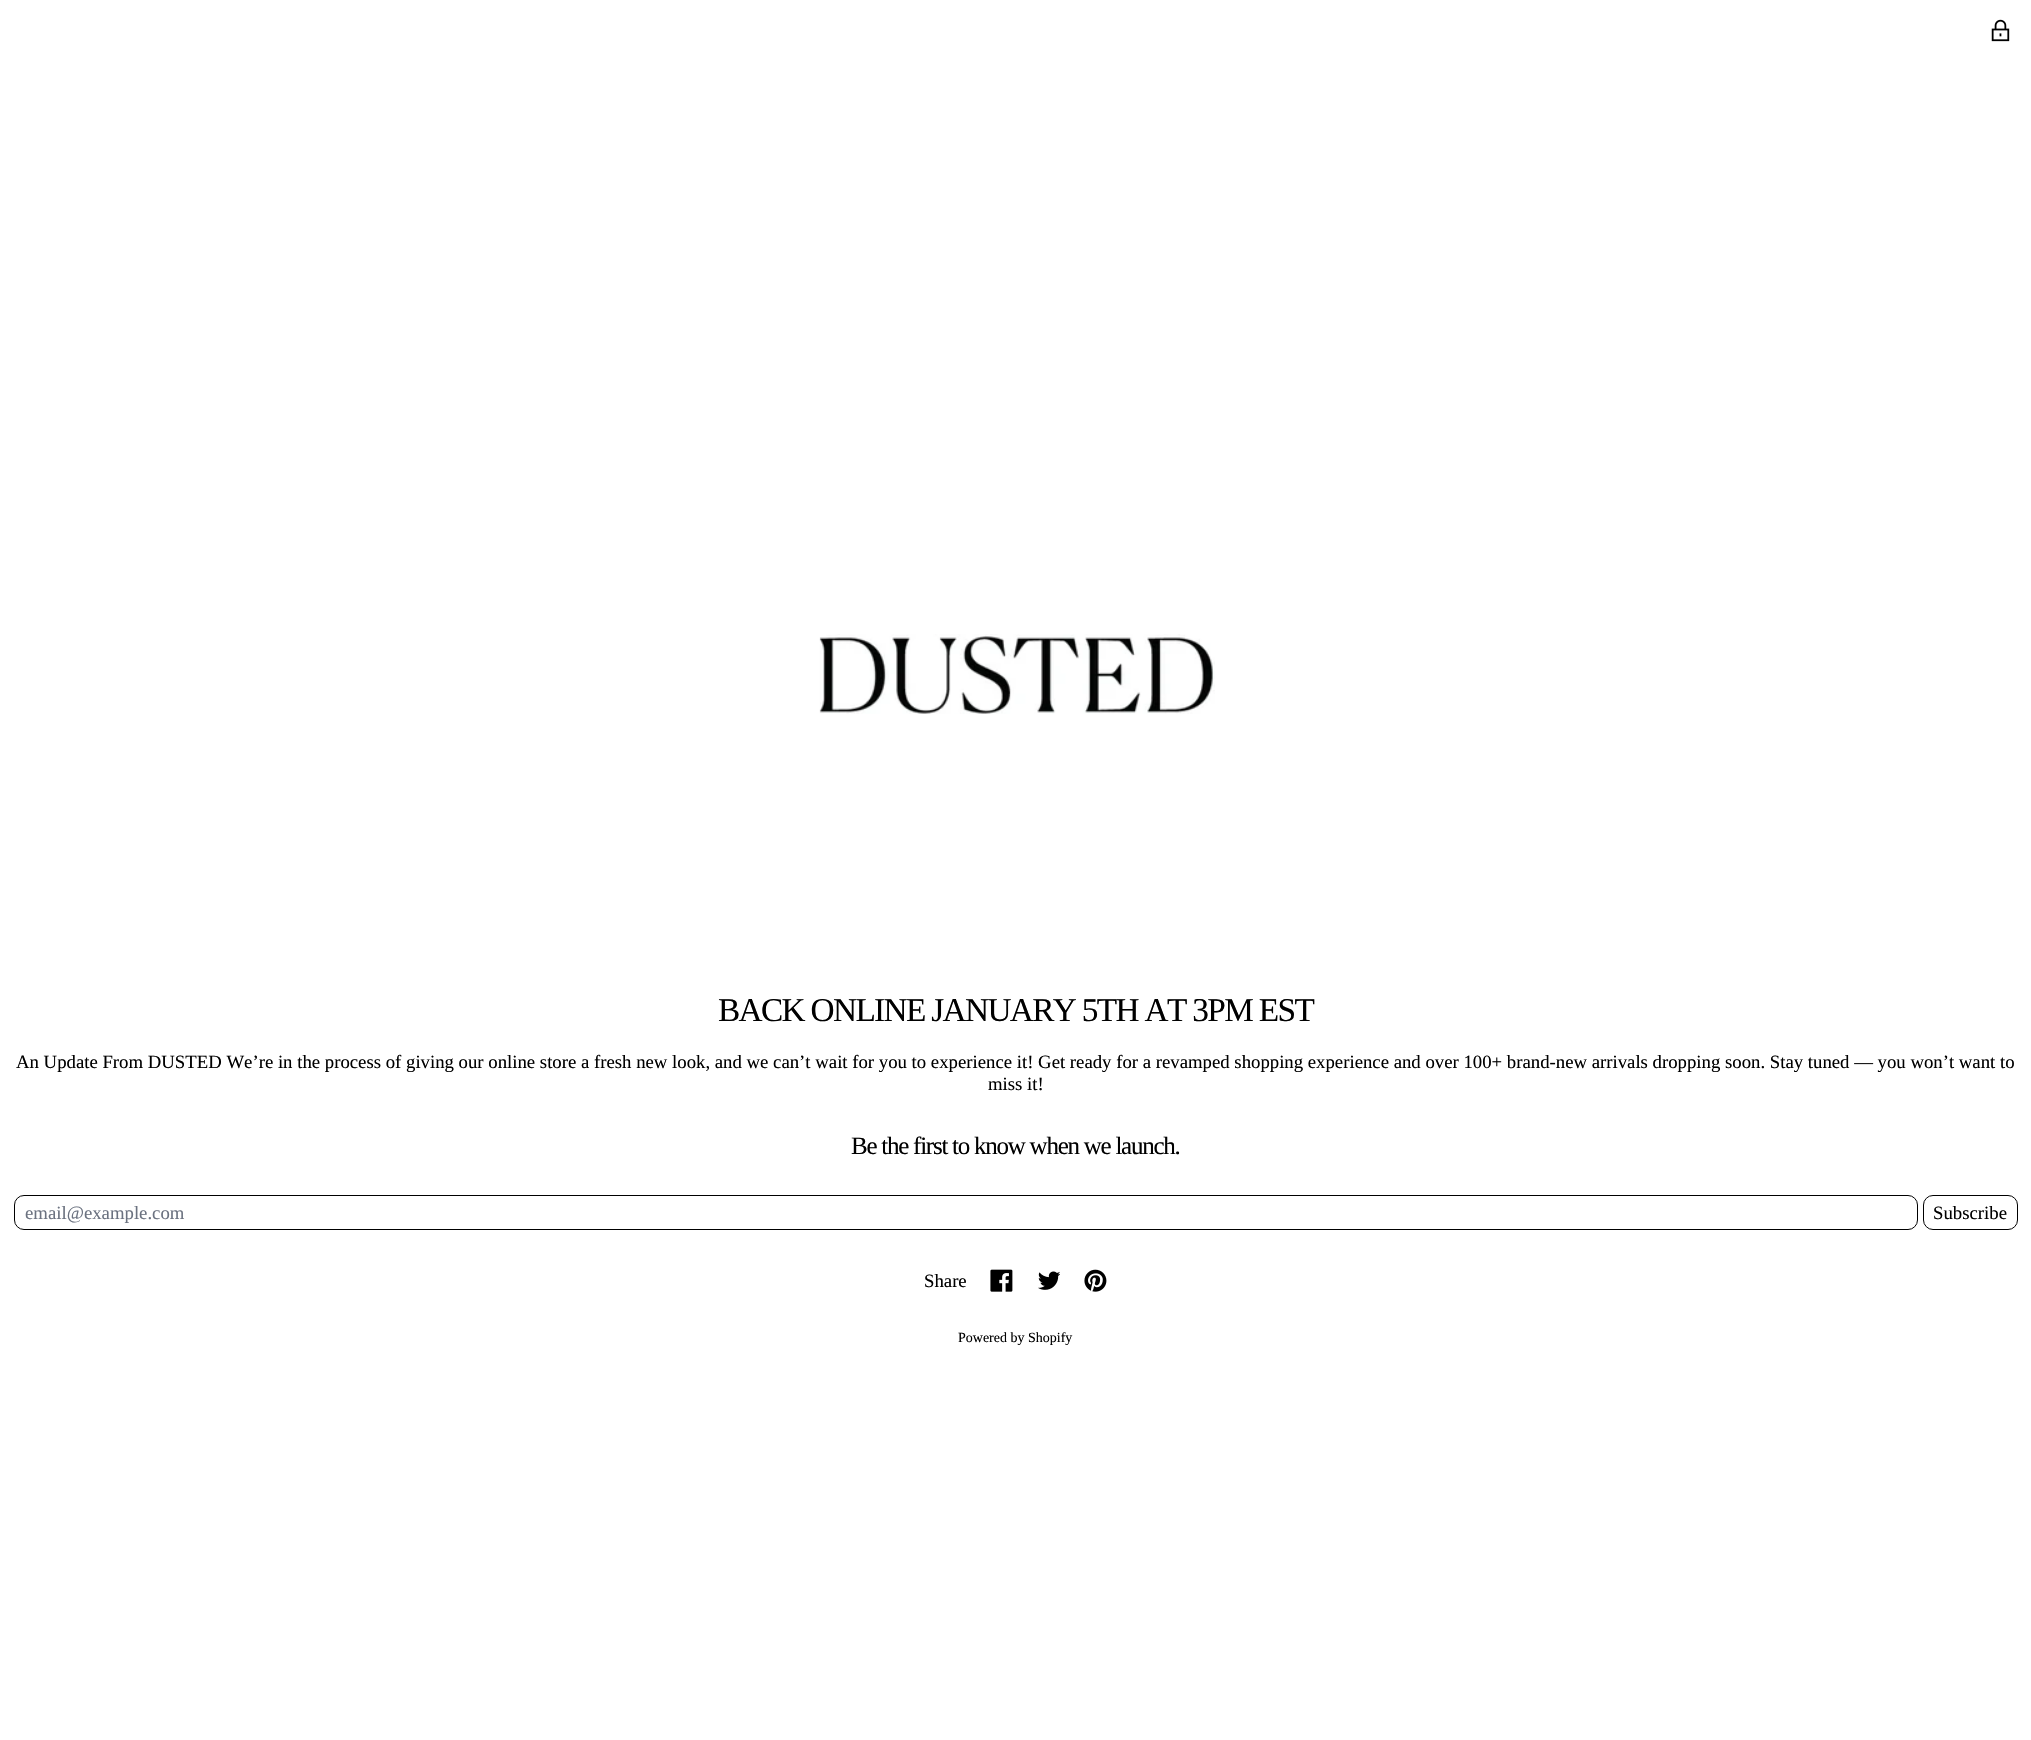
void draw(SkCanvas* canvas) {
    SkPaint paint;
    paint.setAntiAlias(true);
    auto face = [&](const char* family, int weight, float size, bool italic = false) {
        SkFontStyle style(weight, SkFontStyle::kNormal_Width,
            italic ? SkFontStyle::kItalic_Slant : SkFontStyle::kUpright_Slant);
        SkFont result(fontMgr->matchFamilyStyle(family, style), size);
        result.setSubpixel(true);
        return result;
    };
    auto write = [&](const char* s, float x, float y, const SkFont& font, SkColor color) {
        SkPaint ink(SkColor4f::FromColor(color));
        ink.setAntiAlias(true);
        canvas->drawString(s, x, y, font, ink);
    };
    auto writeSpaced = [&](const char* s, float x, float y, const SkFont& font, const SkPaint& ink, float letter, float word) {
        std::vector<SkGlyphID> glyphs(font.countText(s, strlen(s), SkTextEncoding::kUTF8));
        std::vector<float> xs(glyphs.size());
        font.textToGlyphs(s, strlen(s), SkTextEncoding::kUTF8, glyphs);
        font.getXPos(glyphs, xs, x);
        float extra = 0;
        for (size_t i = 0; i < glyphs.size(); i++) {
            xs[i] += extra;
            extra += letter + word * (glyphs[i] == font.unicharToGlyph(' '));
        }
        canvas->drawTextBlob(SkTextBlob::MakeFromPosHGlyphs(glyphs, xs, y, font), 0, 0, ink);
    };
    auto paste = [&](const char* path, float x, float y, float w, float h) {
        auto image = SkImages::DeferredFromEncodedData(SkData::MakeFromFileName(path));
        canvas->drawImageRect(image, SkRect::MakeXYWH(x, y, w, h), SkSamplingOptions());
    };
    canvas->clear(SK_ColorWHITE);
    paste("pic1.png", 1991, 19, 19, 23);
    paste("pic2.png", 819, 634, 396, 80);
    auto kFont1 = face("Liberation Serif", 400, 33.3f);
    paint.setColor(SK_ColorBLACK);
    writeSpaced("BACK ONLINE JANUARY 5TH AT 3PM EST", 718, 1021, kFont1, paint, -1.65f, 0);
    auto kFont2 = face("Liberation Serif", 400, 18.75f);
    write("An Update From DUSTED We’re in the process of giving our online store a fresh new look, and we can’t wait for you to experience it! Get ready for a revamped shopping experience and over 100+ brand-new arrivals dropping soon. Stay tuned — you won’t want to", 16, 1068, kFont2, SK_ColorBLACK);
    write("miss it!", 988, 1090, kFont2, SK_ColorBLACK);
    auto kFont3 = face("Liberation Serif", 400, 25);
    writeSpaced("Be the first to know when we launch.", 851, 1154, kFont3, paint, -1.25f, 0);
    paint.setStyle(SkPaint::kStroke_Style);
    paint.setStrokeWidth(1);
    canvas->drawRoundRect(SkRect::MakeXYWH(14.5f, 1195.5f, 1903, 34), 9.5f, 9.5f, paint);
    write("email@example.com", 25, 1219, kFont2, SkColorSetRGB(107, 114, 128));
    canvas->drawRoundRect(SkRect::MakeXYWH(1923.5f, 1195.5f, 94, 34), 9.5f, 9.5f, paint);
    write("Subscribe", 1933, 1219, kFont2, SK_ColorBLACK);
    write("Share", 924, 1287, kFont2, SK_ColorBLACK);
    paste("pic3.png", 990, 1269, 23, 23);
    paste("pic4.png", 1038, 1271, 22, 19);
    paste("pic5.png", 1084, 1269, 23, 23);
    auto kFont4 = face("Liberation Serif", 400, 14);
    write("Powered by Shopify", 958, 1342, kFont4, SK_ColorBLACK);
}
